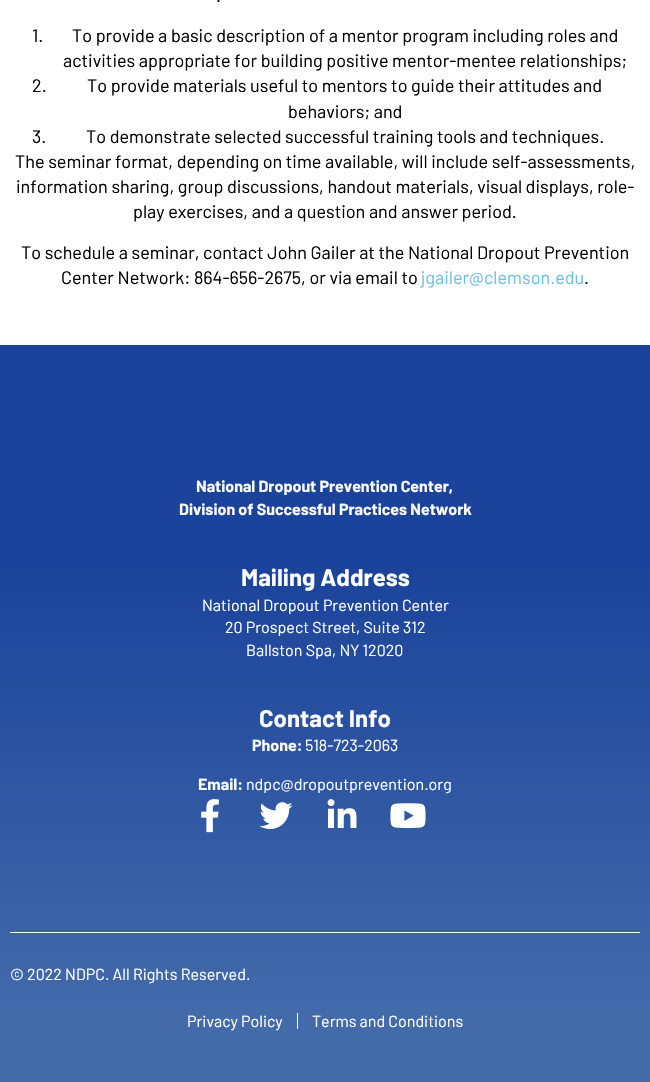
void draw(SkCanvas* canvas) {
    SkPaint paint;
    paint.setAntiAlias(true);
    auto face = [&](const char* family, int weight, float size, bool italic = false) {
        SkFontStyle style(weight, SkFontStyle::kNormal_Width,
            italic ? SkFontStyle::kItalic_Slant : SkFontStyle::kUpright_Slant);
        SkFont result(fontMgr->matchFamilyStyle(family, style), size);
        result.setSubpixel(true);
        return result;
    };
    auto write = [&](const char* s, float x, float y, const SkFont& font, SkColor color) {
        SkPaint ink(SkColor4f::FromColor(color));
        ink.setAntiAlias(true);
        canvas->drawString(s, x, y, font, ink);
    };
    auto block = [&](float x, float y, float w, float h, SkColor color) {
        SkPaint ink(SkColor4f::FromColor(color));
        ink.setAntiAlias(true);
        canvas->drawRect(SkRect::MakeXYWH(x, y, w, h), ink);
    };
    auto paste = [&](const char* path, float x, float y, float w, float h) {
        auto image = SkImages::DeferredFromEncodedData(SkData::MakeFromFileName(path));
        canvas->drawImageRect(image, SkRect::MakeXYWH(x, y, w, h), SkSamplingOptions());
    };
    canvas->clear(SK_ColorWHITE);
    auto kFont1 = face("Barlow", 400, 18);
    write(".", 216, 2, kFont1, SK_ColorBLACK);
    write("1.", 32, 42, kFont1, SK_ColorBLACK);
    write("To provide a basic description of a mentor program including roles and", 72, 42, kFont1, SK_ColorBLACK);
    write("activities appropriate for building positive mentor-mentee relationships;", 63, 67, kFont1, SK_ColorBLACK);
    write("2.", 32, 92, kFont1, SK_ColorBLACK);
    write("To provide materials useful to mentors to guide their attitudes and", 87, 92, kFont1, SK_ColorBLACK);
    write("behaviors; and", 288, 118, kFont1, SK_ColorBLACK);
    write("3.", 32, 143, kFont1, SK_ColorBLACK);
    write("To demonstrate selected successful training tools and techniques.", 86, 143, kFont1, SK_ColorBLACK);
    write("The seminar format, depending on time available, will include self-assessments,", 15, 168, kFont1, SK_ColorBLACK);
    write("information sharing, group discussions, handout materials, visual displays, role-", 16, 193, kFont1, SK_ColorBLACK);
    write("play exercises, and a question and answer period.", 133, 218, kFont1, SK_ColorBLACK);
    write("To schedule a seminar, contact John Gailer at the National Dropout Prevention", 21, 259, kFont1, SK_ColorBLACK);
    write("Center Network: 864-656-2675, or via email to", 61, 284, kFont1, SK_ColorBLACK);
    write("jgailer@clemson.edu", 421, 284, kFont1, SkColorSetRGB(110, 193, 228));
    write(".", 584, 284, kFont1, SK_ColorBLACK);
    {
        const SkColor colors[] = {SkColorSetRGB(27, 67, 155), SkColorSetRGB(67, 107, 170)};
        const float stops[] = {0.3f, 0.91f};
        const SkPoint ends[] = {{325, 345}, {325, 1082}};
        paint.setShader(SkGradientShader::MakeLinear(ends, colors, stops, 2, SkTileMode::kClamp));
        paint.setAlpha(255);
    }
    canvas->drawRect(SkRect::MakeXYWH(0, 345, 650, 737), paint);
    block(10, 932, 630, 1, SK_ColorWHITE);
    auto kFont2 = face("Barlow", 700, 16);
    write("National Dropout Prevention Center,", 196, 492, kFont2, SK_ColorWHITE);
    write("Division of Successful Practices Network", 179, 515, kFont2, SK_ColorWHITE);
    auto kFont3 = face("Barlow", 700, 24);
    write("Mailing Address", 241, 586, kFont3, SK_ColorWHITE);
    auto kFont4 = face("Barlow", 400, 16);
    write("National Dropout Prevention Center", 202, 611, kFont4, SK_ColorWHITE);
    write("20 Prospect Street, Suite 312", 225, 633, kFont4, SK_ColorWHITE);
    write("Ballston Spa, NY 12020", 246, 656, kFont4, SK_ColorWHITE);
    write("Contact Info", 259, 727, kFont3, SK_ColorWHITE);
    write("Phone:", 252, 751, kFont2, SK_ColorWHITE);
    write("518-723-2063", 305, 751, kFont4, SK_ColorWHITE);
    write("Email:", 198, 790, kFont2, SK_ColorWHITE);
    write("ndpc@dropoutprevention.org", 246, 790, kFont4, SK_ColorWHITE);
    paste("pic1.png", 201, 799, 18, 34);
    paste("pic2.png", 259, 802, 34, 27);
    paste("pic3.png", 327, 799, 30, 29);
    paste("pic4.png", 390, 803, 36, 25);
    write("© 2022 NDPC. All Rights Reserved.", 10, 980, kFont4, SK_ColorWHITE);
    write("Privacy Policy", 187, 1027, kFont4, SK_ColorWHITE);
    block(297, 1013, 1, 16, SK_ColorWHITE);
    write("Terms and Conditions", 312, 1027, kFont4, SK_ColorWHITE);
}
